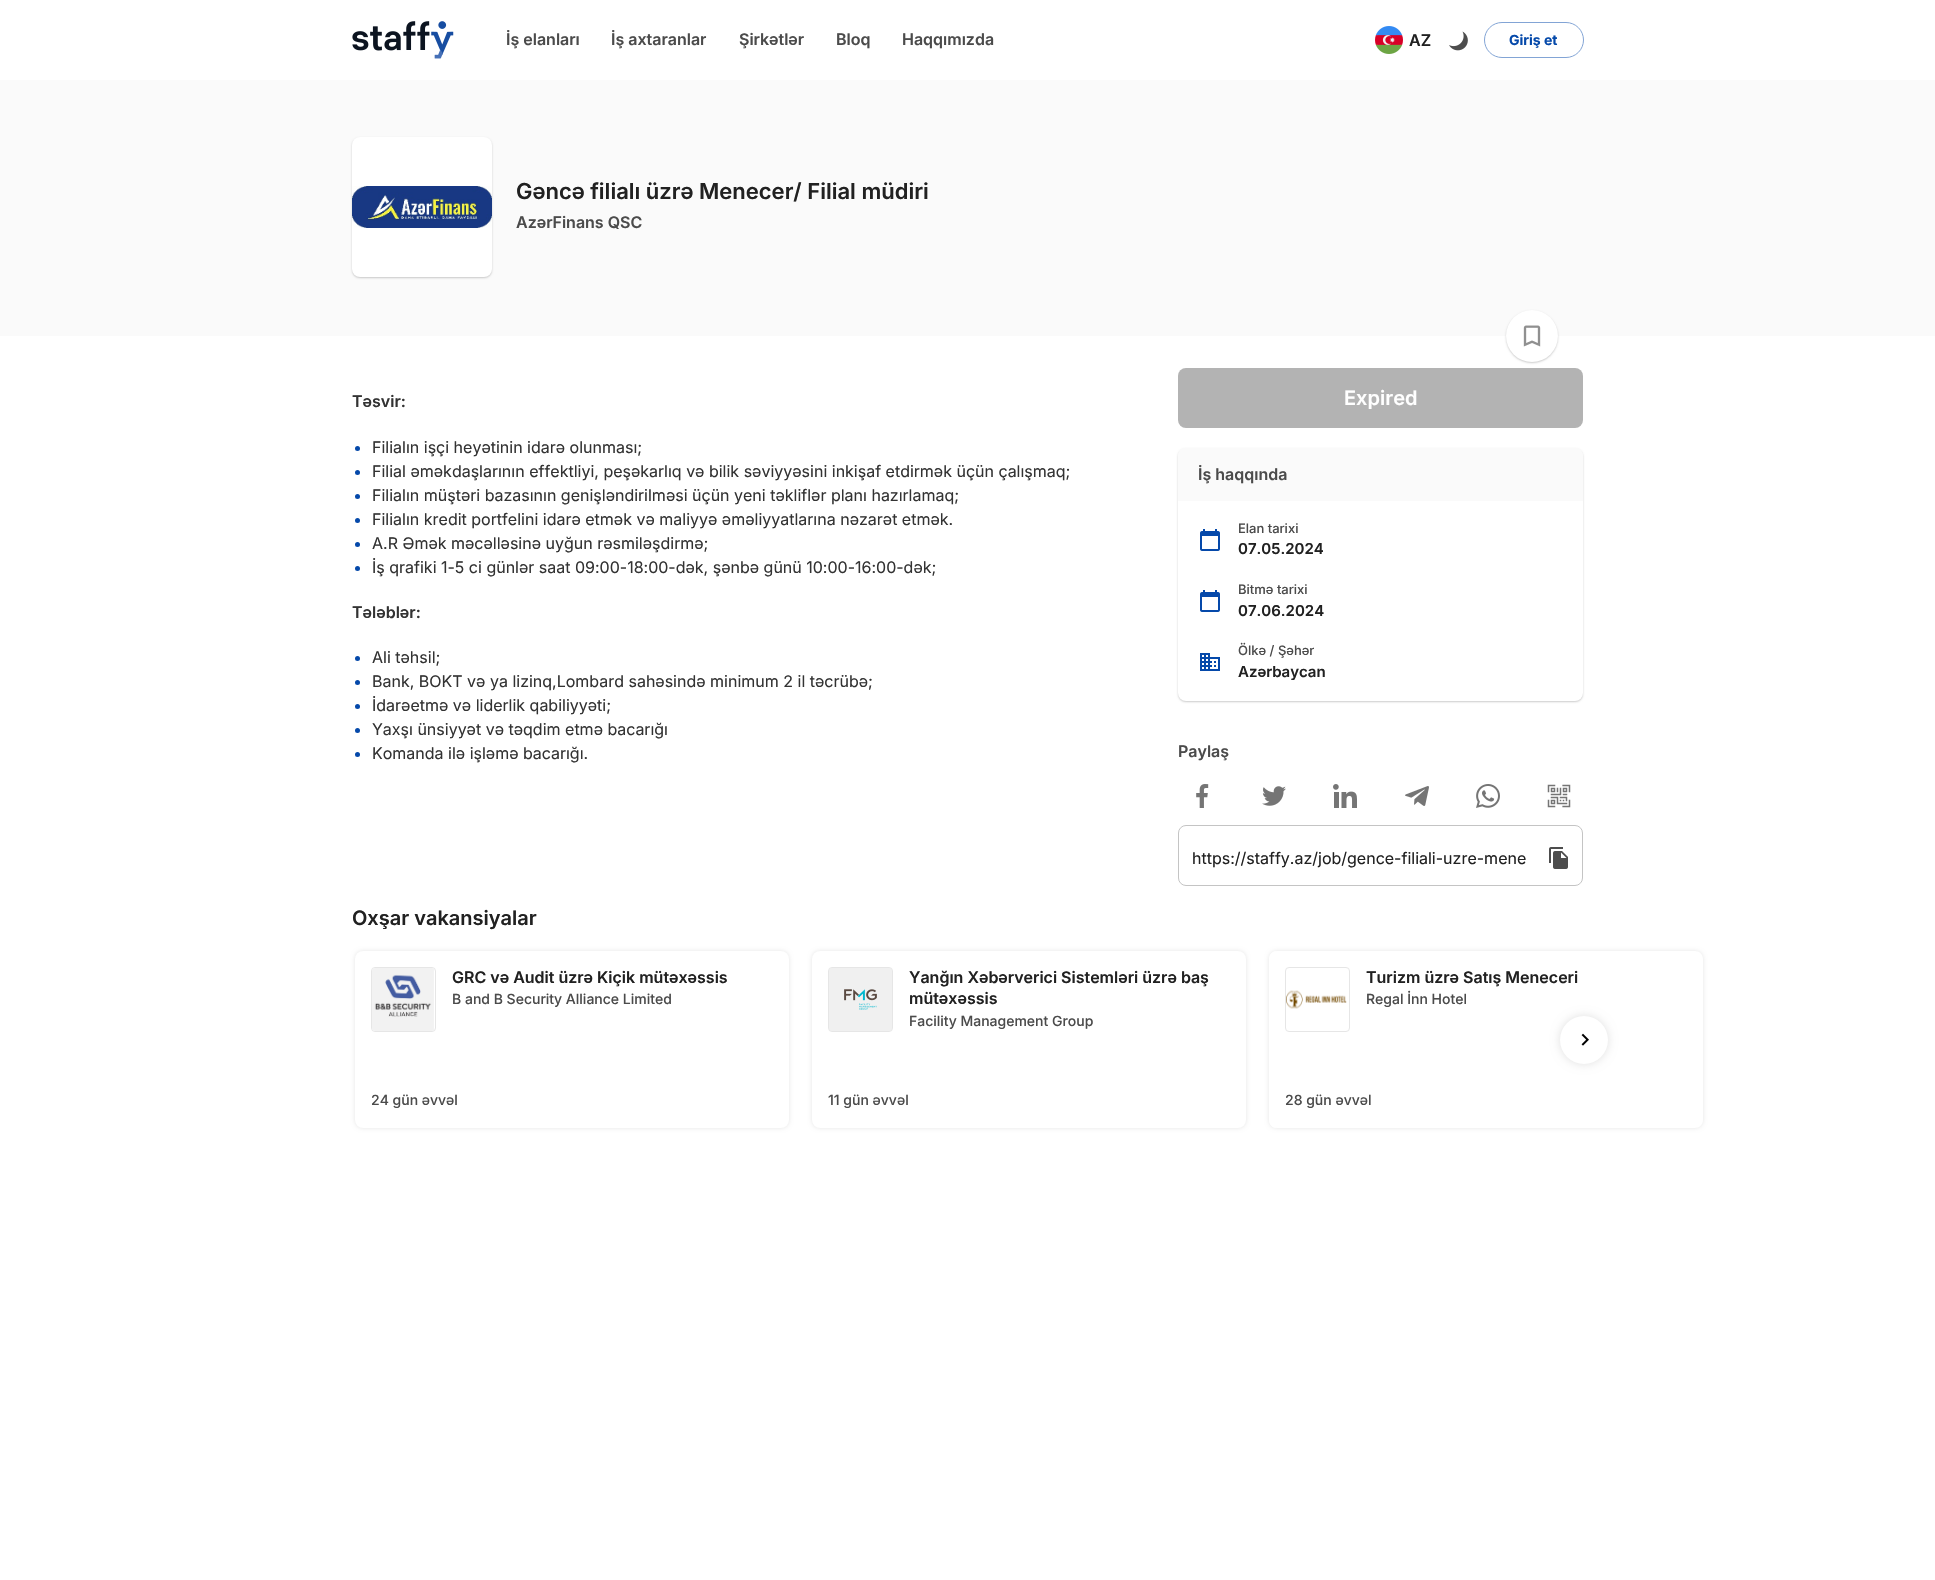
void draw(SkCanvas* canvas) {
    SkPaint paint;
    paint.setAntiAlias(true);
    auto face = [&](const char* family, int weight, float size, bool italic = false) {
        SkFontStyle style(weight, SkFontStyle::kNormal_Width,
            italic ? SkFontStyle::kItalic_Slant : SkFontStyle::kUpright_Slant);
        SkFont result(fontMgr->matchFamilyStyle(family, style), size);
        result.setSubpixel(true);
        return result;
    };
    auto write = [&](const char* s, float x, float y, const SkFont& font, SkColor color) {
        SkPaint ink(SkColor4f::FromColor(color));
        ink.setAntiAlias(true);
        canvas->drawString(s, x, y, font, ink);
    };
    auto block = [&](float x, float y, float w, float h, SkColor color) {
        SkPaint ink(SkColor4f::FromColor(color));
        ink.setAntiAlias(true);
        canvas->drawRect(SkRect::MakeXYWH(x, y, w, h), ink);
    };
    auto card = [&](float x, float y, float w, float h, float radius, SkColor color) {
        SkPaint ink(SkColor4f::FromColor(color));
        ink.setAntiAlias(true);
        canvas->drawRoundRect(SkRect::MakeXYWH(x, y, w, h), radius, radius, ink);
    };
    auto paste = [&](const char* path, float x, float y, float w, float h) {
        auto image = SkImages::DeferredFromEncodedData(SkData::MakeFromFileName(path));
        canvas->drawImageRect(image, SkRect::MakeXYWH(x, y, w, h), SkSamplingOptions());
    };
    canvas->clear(SK_ColorWHITE);
    paste("pic1.png", 352, 21, 102, 38);
    auto kFont1 = face("Inter", 600, 16);
    write("İş elanları", 506, 45, kFont1, SkColorSetRGB(75, 75, 75));
    write("İş axtaranlar", 611, 45, kFont1, SkColorSetRGB(75, 75, 75));
    write("Şirkətlər", 739, 45, kFont1, SkColorSetRGB(75, 75, 75));
    write("Bloq", 836, 45, kFont1, SkColorSetRGB(75, 75, 75));
    write("Haqqımızda", 902, 45, kFont1, SkColorSetRGB(75, 75, 75));
    paste("pic2.png", 1375, 26, 28, 28);
    write("AZ", 1409, 46, kFont1, SkColorSetRGB(33, 33, 33));
    paste("pic3.png", 1449, 31, 19, 20);
    paint.setStyle(SkPaint::kStroke_Style);
    paint.setStrokeWidth(1);
    paint.setColor(SkColorSetRGB(130, 164, 213));
    canvas->drawRoundRect(SkRect::MakeXYWH(1484.5f, 22.5f, 99, 35), 17.5f, 17.5f, paint);
    auto kFont2 = face("Inter", 700, 14);
    write("Giriş et", 1509, 45, kFont2, SkColorSetRGB(5, 73, 170));
    block(0, 80, 1935, 256, SkColorSetRGB(250, 250, 250));
    paint.setStyle(SkPaint::kFill_Style);
    paint.setColor(SkColorSetARGB(51, 0, 0, 0));
    paint.setMaskFilter(SkMaskFilter::MakeBlur(kNormal_SkBlurStyle, 1));
    canvas->drawRoundRect(SkRect::MakeXYWH(352, 138, 140, 140), 8, 8, paint);
    paint.setMaskFilter(nullptr);
    card(352, 137, 140, 140, 8, SK_ColorWHITE);
    paste("pic4.png", 352, 186, 140, 42);
    auto kFont3 = face("Inter", 600, 22);
    write("Gəncə filialı üzrə Menecer/ Filial müdiri", 516, 199, kFont3, SkColorSetRGB(33, 33, 33));
    write("AzərFinans QSC", 516, 228, kFont1, SkColorSetRGB(75, 75, 75));
    paint.setMaskFilter(SkMaskFilter::MakeBlur(kNormal_SkBlurStyle, 1));
    canvas->drawRoundRect(SkRect::MakeXYWH(1506, 311, 52, 52), 26, 26, paint);
    paint.setMaskFilter(nullptr);
    paint.setColor(SK_ColorWHITE);
    canvas->drawCircle(1532, 336, 26, paint);
    paste("pic5.png", 1523, 325, 18, 22);
    write("Təsvir:", 352, 407, kFont1, SkColorSetRGB(51, 51, 51));
    paint.setColor(SkColorSetRGB(5, 73, 170));
    canvas->drawCircle(357.5f, 448.5f, 2.5f, paint);
    auto kFont4 = face("Inter", 400, 16);
    write("Filialın işçi heyətinin idarə olunması;", 372, 453, kFont4, SkColorSetRGB(51, 51, 51));
    canvas->drawCircle(357.5f, 472.5f, 2.5f, paint);
    write("Filial əməkdaşlarının effektliyi, peşəkarlıq və bilik səviyyəsini inkişaf etdirmək üçün çalışmaq;", 372, 477, kFont4, SkColorSetRGB(51, 51, 51));
    canvas->drawCircle(357.5f, 496.5f, 2.5f, paint);
    write("Filialın müştəri bazasının genişləndirilməsi üçün yeni təkliflər planı hazırlamaq;", 372, 501, kFont4, SkColorSetRGB(51, 51, 51));
    canvas->drawCircle(357.5f, 520.5f, 2.5f, paint);
    write("Filialın kredit portfelini idarə etmək və maliyyə əməliyyatlarına nəzarət etmək.", 372, 525, kFont4, SkColorSetRGB(51, 51, 51));
    canvas->drawCircle(357.5f, 544.5f, 2.5f, paint);
    write("A.R Əmək məcəlləsinə uyğun rəsmiləşdirmə;", 372, 549, kFont4, SkColorSetRGB(51, 51, 51));
    canvas->drawCircle(357.5f, 568.5f, 2.5f, paint);
    write("İş qrafiki 1-5 ci günlər saat 09:00-18:00-dək, şənbə günü 10:00-16:00-dək;", 372, 573, kFont4, SkColorSetRGB(51, 51, 51));
    write("Tələblər:", 352, 618, kFont1, SkColorSetRGB(51, 51, 51));
    canvas->drawCircle(357.5f, 658.5f, 2.5f, paint);
    write("Ali təhsil;", 372, 663, kFont4, SkColorSetRGB(51, 51, 51));
    canvas->drawCircle(357.5f, 682.5f, 2.5f, paint);
    write("Bank, BOKT və ya lizinq,Lombard sahəsində minimum 2 il təcrübə;", 372, 687, kFont4, SkColorSetRGB(51, 51, 51));
    canvas->drawCircle(357.5f, 706.5f, 2.5f, paint);
    write("İdarəetmə və liderlik qabiliyyəti;", 372, 711, kFont4, SkColorSetRGB(51, 51, 51));
    canvas->drawCircle(357.5f, 730.5f, 2.5f, paint);
    write("Yaxşı ünsiyyət və təqdim etmə bacarığı", 372, 735, kFont4, SkColorSetRGB(51, 51, 51));
    canvas->drawCircle(357.5f, 754.5f, 2.5f, paint);
    write("Komanda ilə işləmə bacarığı.", 372, 759, kFont4, SkColorSetRGB(51, 51, 51));
    card(1178, 368, 405, 60, 8, SkColorSetRGB(179, 179, 179));
    auto kFont5 = face("Inter", 600, 20);
    write("Expired", 1344, 405, kFont5, SK_ColorWHITE);
    paint.setColor(SkColorSetARGB(51, 0, 0, 0));
    paint.setMaskFilter(SkMaskFilter::MakeBlur(kNormal_SkBlurStyle, 1));
    canvas->drawRoundRect(SkRect::MakeXYWH(1178, 449, 405, 253), 8, 8, paint);
    paint.setMaskFilter(nullptr);
    card(1178, 448, 405, 253, 8, SK_ColorWHITE);
    paint.setColor(SkColorSetRGB(250, 250, 250));
    canvas->drawPath(SkPathBuilder().moveTo(1186, 448).lineTo(1575, 448).cubicTo(1579.5f, 448, 1583, 451.5f, 1583, 456).lineTo(1583, 501).lineTo(1178, 501).lineTo(1178, 456).cubicTo(1178, 451.5f, 1181.5f, 448, 1186, 448).close().detach(), paint);
    write("İş haqqında", 1198, 480, kFont1, SkColorSetRGB(75, 75, 75));
    paste("pic6.png", 1200, 529, 20, 22);
    auto kFont6 = face("Inter", 500, 13);
    write("Elan tarixi", 1238, 533, kFont6, SkColorSetRGB(75, 75, 75));
    auto kFont7 = face("Inter", 600, 15);
    write("07.05.2024", 1238, 554, kFont7, SkColorSetRGB(33, 33, 33));
    paste("pic6.png", 1200, 590, 20, 22);
    write("Bitmə tarixi", 1238, 594, kFont6, SkColorSetRGB(75, 75, 75));
    write("07.06.2024", 1238, 616, kFont7, SkColorSetRGB(33, 33, 33));
    paste("pic7.png", 1200, 653, 20, 18);
    write("Ölkə / Şəhər", 1238, 655, kFont6, SkColorSetRGB(75, 75, 75));
    write("Azərbaycan", 1238, 677, kFont7, SkColorSetRGB(33, 33, 33));
    write("Paylaş", 1178, 757, kFont1, SkColorSetRGB(75, 75, 75));
    paste("pic8.png", 1196, 784, 13, 24);
    paste("pic9.png", 1262, 786, 24, 20);
    paste("pic10.png", 1333, 784, 24, 24);
    paste("pic11.png", 1405, 786, 24, 20);
    paste("pic12.png", 1476, 784, 24, 24);
    paste("pic13.png", 1547, 784, 24, 24);
    paste("pic14.png", 1549, 847, 19, 22);
    paint.setStyle(SkPaint::kStroke_Style);
    paint.setColor(SkColorSetRGB(196, 196, 196));
    canvas->drawRoundRect(SkRect::MakeXYWH(1178.5f, 825.5f, 404, 60), 7.5f, 7.5f, paint);
    write("https://staffy.az/job/gence-filiali-uzre-mene", 1192, 864, kFont4, SkColorSetRGB(33, 33, 33));
    write("Oxşar vakansiyalar", 352, 925, kFont5, SkColorSetRGB(33, 33, 33));
    paint.setStyle(SkPaint::kFill_Style);
    paint.setColor(SkColorSetARGB(26, 0, 0, 0));
    paint.setMaskFilter(SkMaskFilter::MakeBlur(kNormal_SkBlurStyle, 2));
    canvas->drawRoundRect(SkRect::MakeXYWH(355, 951, 434, 177), 8, 8, paint);
    paint.setMaskFilter(nullptr);
    card(355, 951, 434, 177, 8, SK_ColorWHITE);
    paint.setStyle(SkPaint::kStroke_Style);
    paint.setColor(SkColorSetRGB(230, 230, 230));
    canvas->drawRoundRect(SkRect::MakeXYWH(371.5f, 967.5f, 64, 64), 3.5f, 3.5f, paint);
    paste("pic15.png", 372, 968, 62, 63);
    write("GRC və Audit üzrə Kiçik mütəxəssis", 452, 983, kFont1, SkColorSetRGB(33, 33, 33));
    auto kFont8 = face("Inter", 500, 14);
    write("B and B Security Alliance Limited", 452, 1004, kFont8, SkColorSetRGB(75, 75, 75));
    write("24 gün əvvəl", 371, 1105, kFont8, SkColorSetRGB(75, 75, 75));
    paint.setStyle(SkPaint::kFill_Style);
    paint.setColor(SkColorSetARGB(26, 0, 0, 0));
    paint.setMaskFilter(SkMaskFilter::MakeBlur(kNormal_SkBlurStyle, 2));
    canvas->drawRoundRect(SkRect::MakeXYWH(812, 951, 434, 177), 8, 8, paint);
    paint.setMaskFilter(nullptr);
    card(812, 951, 434, 177, 8, SK_ColorWHITE);
    paint.setStyle(SkPaint::kStroke_Style);
    paint.setColor(SkColorSetRGB(230, 230, 230));
    canvas->drawRoundRect(SkRect::MakeXYWH(828.5f, 967.5f, 64, 64), 3.5f, 3.5f, paint);
    paste("pic16.png", 829, 968, 63, 63);
    write("Yanğın Xəbərverici Sistemləri üzrə baş", 909, 983, kFont1, SkColorSetRGB(33, 33, 33));
    write("mütəxəssis", 909, 1004, kFont1, SkColorSetRGB(33, 33, 33));
    write("Facility Management Group", 909, 1026, kFont8, SkColorSetRGB(75, 75, 75));
    write("11 gün əvvəl", 828, 1105, kFont8, SkColorSetRGB(75, 75, 75));
    canvas->save();
    canvas->clipPath(SkPathBuilder(SkPathFillType::kEvenOdd).moveTo(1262, 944).lineTo(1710, 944).lineTo(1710, 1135).lineTo(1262, 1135).close().moveTo(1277, 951).lineTo(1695, 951).cubicTo(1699.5f, 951, 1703, 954.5f, 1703, 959).lineTo(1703, 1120).cubicTo(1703, 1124.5f, 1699.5f, 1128, 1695, 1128).lineTo(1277, 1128).cubicTo(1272.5f, 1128, 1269, 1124.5f, 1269, 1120).lineTo(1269, 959).cubicTo(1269, 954.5f, 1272.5f, 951, 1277, 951).close().detach(), true);
    paint.setStyle(SkPaint::kFill_Style);
    paint.setColor(SkColorSetARGB(26, 0, 0, 0));
    paint.setMaskFilter(SkMaskFilter::MakeBlur(kNormal_SkBlurStyle, 2));
    canvas->drawRoundRect(SkRect::MakeXYWH(1269, 951, 434, 177), 8, 8, paint);
    paint.setMaskFilter(nullptr);
    canvas->restore();
    paint.setColor(SK_ColorWHITE);
    canvas->drawPath(SkPathBuilder().moveTo(1277, 951).lineTo(1584, 951).lineTo(1584, 1128).lineTo(1277, 1128).cubicTo(1272.5f, 1128, 1269, 1124.5f, 1269, 1120).lineTo(1269, 959).cubicTo(1269, 954.5f, 1272.5f, 951, 1277, 951).close().detach(), paint);
    paint.setStyle(SkPaint::kStroke_Style);
    paint.setColor(SkColorSetRGB(230, 230, 230));
    canvas->drawRoundRect(SkRect::MakeXYWH(1285.5f, 967.5f, 64, 64), 3.5f, 3.5f, paint);
    paste("pic17.png", 1286, 990, 61, 19);
    write("Turizm üzrə Satış Meneceri", 1366, 983, kFont1, SkColorSetRGB(33, 33, 33));
    write("Regal İnn Hotel", 1366, 1004, kFont8, SkColorSetRGB(75, 75, 75));
    write("28 gün əvvəl", 1285, 1105, kFont8, SkColorSetRGB(75, 75, 75));
    paint.setStyle(SkPaint::kFill_Style);
    paint.setColor(SkColorSetARGB(31, 0, 0, 0));
    paint.setMaskFilter(SkMaskFilter::MakeBlur(kNormal_SkBlurStyle, 5));
    canvas->drawRoundRect(SkRect::MakeXYWH(1560, 1016, 48, 48), 24, 24, paint);
    paint.setMaskFilter(nullptr);
    paint.setColor(SK_ColorWHITE);
    canvas->drawCircle(1584, 1040, 24, paint);
    paste("pic18.png", 1581, 1033, 8, 13);
}
